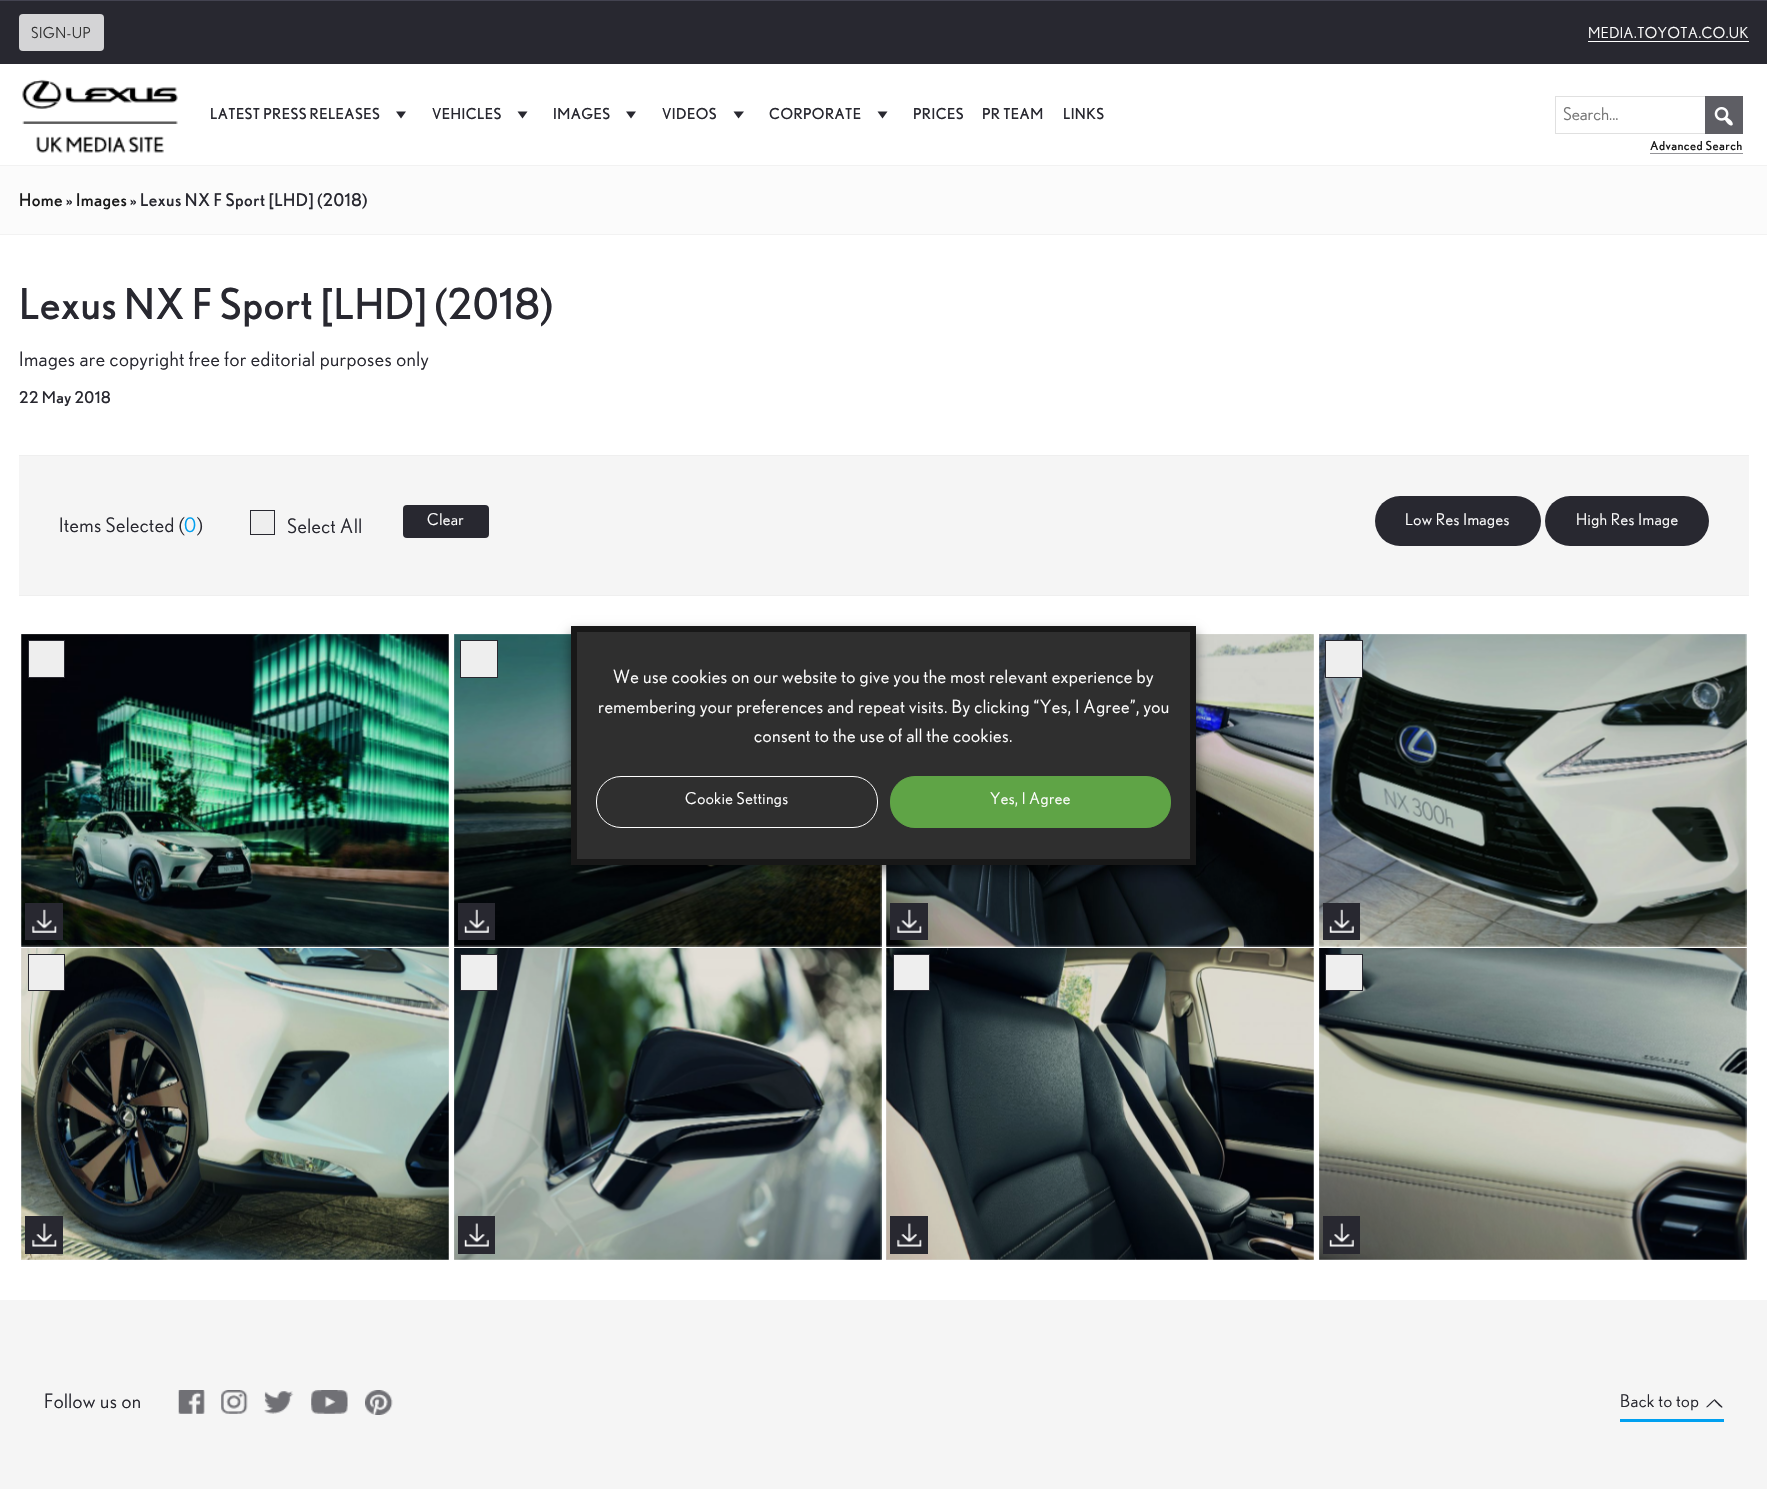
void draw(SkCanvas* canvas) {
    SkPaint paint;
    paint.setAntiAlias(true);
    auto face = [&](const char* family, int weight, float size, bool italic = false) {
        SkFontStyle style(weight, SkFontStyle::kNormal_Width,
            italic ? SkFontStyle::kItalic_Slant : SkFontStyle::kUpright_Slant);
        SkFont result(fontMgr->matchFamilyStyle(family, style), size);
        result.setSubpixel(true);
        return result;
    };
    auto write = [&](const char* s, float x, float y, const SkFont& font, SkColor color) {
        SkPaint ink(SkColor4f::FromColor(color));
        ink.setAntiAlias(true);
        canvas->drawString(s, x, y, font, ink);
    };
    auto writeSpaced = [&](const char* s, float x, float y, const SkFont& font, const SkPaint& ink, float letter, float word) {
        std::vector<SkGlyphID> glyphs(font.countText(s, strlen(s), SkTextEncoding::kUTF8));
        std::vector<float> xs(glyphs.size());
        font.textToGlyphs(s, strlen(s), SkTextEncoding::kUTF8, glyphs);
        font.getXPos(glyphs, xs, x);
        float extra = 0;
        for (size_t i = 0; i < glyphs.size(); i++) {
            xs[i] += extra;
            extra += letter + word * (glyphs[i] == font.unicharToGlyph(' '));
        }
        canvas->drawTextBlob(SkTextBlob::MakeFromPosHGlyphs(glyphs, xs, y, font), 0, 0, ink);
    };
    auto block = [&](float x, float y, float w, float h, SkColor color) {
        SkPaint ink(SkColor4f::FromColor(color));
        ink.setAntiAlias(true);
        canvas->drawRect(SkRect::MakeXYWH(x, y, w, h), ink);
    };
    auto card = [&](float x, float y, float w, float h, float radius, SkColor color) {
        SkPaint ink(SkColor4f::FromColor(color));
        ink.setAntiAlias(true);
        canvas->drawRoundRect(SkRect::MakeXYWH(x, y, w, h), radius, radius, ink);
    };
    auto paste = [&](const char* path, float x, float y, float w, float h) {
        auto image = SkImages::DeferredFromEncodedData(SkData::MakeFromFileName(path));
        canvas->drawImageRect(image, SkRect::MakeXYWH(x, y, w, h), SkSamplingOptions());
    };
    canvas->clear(SK_ColorWHITE);
    block(1319, 948, 427, 312, SkColorSetRGB(230, 230, 230));
    block(886, 948, 428, 312, SkColorSetRGB(230, 230, 230));
    block(454, 948, 427, 312, SkColorSetRGB(230, 230, 230));
    block(21, 948, 428, 312, SkColorSetRGB(230, 230, 230));
    block(886, 634, 428, 312, SkColorSetRGB(230, 230, 230));
    block(21, 634, 428, 312, SkColorSetRGB(230, 230, 230));
    block(0, 1, 1767, 63, SkColorSetRGB(40, 40, 48));
    block(0, 0, 1767, 1, SkColorSetRGB(67, 67, 80));
    card(19, 14, 85, 37, 4, SkColorSetRGB(212, 212, 214));
    auto kFont1 = face("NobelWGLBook", 400, 15);
    paint.setColor(SkColorSetRGB(51, 51, 51));
    writeSpaced("SIGN-UP", 31, 38, kFont1, paint, 0.45f, 0);
    paint.setColor(SK_ColorWHITE);
    writeSpaced("MEDIA.TOYOTA.CO.UK", 1588, 38, kFont1, paint, 0.45f, 0);
    block(1588, 41, 161, 1, SK_ColorWHITE);
    block(0, 165, 1767, 1, SkColorSetRGB(242, 242, 242));
    paste("pic1.png", 22, 79, 156, 74);
    auto kFont2 = face("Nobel", 400, 15);
    paint.setColor(SkColorSetRGB(40, 40, 48));
    writeSpaced("LATEST PRESS RELEASES", 210, 119, kFont2, paint, 0.45f, 0);
    canvas->drawPath(SkPathBuilder().moveTo(406, 111.5f).lineTo(401, 118.5f).lineTo(396, 111.5f).close().detach(), paint);
    writeSpaced("VEHICLES", 432, 119, kFont2, paint, 0.45f, 0);
    canvas->drawPath(SkPathBuilder().moveTo(527.5f, 111.5f).lineTo(522.5f, 118.5f).lineTo(517.5f, 111.5f).close().detach(), paint);
    writeSpaced("IMAGES", 553, 119, kFont2, paint, 0.45f, 0);
    canvas->drawPath(SkPathBuilder().moveTo(636, 111.5f).lineTo(631, 118.5f).lineTo(626, 111.5f).close().detach(), paint);
    writeSpaced("VIDEOS", 662, 119, kFont2, paint, 0.45f, 0);
    canvas->drawPath(SkPathBuilder().moveTo(744, 111.5f).lineTo(738.5f, 118.5f).lineTo(733.5f, 111.5f).close().detach(), paint);
    writeSpaced("CORPORATE", 769, 119, kFont2, paint, 0.45f, 0);
    canvas->drawPath(SkPathBuilder().moveTo(887.5f, 111.5f).lineTo(882.5f, 118.5f).lineTo(877.5f, 111.5f).close().detach(), paint);
    writeSpaced("PRICES", 913, 119, kFont2, paint, 0.45f, 0);
    writeSpaced("PR TEAM", 982, 119, kFont2, paint, 0.45f, 0);
    writeSpaced("LINKS", 1063, 119, kFont2, paint, 0.45f, 0);
    paint.setStyle(SkPaint::kStroke_Style);
    paint.setStrokeWidth(1);
    paint.setColor(SkColorSetRGB(224, 224, 224));
    canvas->drawRect(SkRect::MakeXYWH(1555.5f, 96.5f, 187, 37), paint);
    auto kFont3 = face("NobelWGLBook", 400, 17.5f);
    write("Search...", 1563, 120, kFont3, SkColorSetRGB(117, 117, 117));
    paint.setStyle(SkPaint::kFill_Style);
    paint.setColor(SkColorSetARGB(191, 40, 40, 48));
    canvas->drawRect(SkRect::MakeXYWH(1705.5f, 96.5f, 37, 37), paint);
    paint.setStyle(SkPaint::kStroke_Style);
    paint.setColor(SkColorSetRGB(94, 94, 100));
    canvas->drawRect(SkRect::MakeXYWH(1705.5f, 96.5f, 37, 37), paint);
    paste("pic2.png", 1714, 107, 19, 19);
    auto kFont4 = face("Nobel", 400, 12.5f);
    paint.setStyle(SkPaint::kFill_Style);
    paint.setColor(SkColorSetRGB(26, 26, 26));
    writeSpaced("Advanced Search", 1650, 150, kFont4, paint, 0.45f, 0);
    block(1650, 153, 93, 1, SkColorSetRGB(148, 148, 152));
    block(0, 166, 1767, 68, SkColorSetRGB(251, 251, 251));
    block(0, 234, 1767, 1, SkColorSetRGB(242, 242, 242));
    auto kFont5 = face("Nobel", 400, 17.5f);
    writeSpaced("Home", 19, 206, kFont5, paint, 0.45f, 0);
    paint.setColor(SkColorSetRGB(40, 40, 48));
    writeSpaced("»", 66, 206, kFont5, paint, 0.45f, 0);
    paint.setColor(SkColorSetRGB(26, 26, 26));
    writeSpaced("Images", 76, 206, kFont5, paint, 0.45f, 0);
    paint.setColor(SkColorSetRGB(40, 40, 48));
    writeSpaced("» Lexus NX F Sport [LHD] (2018)", 130, 206, kFont5, paint, 0.45f, 0);
    auto kFont6 = face("Nobel", 400, 42.5f);
    writeSpaced("Lexus NX F Sport [LHD] (2018)", 19, 319, kFont6, paint, 0.45f, 0);
    auto kFont7 = face("NobelWGLBook", 400, 20);
    writeSpaced("Images are copyright free for editorial purposes only", 19, 366, kFont7, paint, 0.45f, 0);
    auto kFont8 = face("Nobel", 400, 16.25f);
    writeSpaced("22 May 2018", 19, 403, kFont8, paint, 0.45f, 0);
    block(19, 456, 1730, 139, SkColorSetRGB(245, 245, 245));
    block(19, 455, 1730, 1, SkColorSetRGB(239, 239, 239));
    block(19, 595, 1730, 1, SkColorSetRGB(239, 239, 239));
    writeSpaced("Items Selected (", 59, 532, kFont7, paint, 0.45f, 0);
    paint.setColor(SkColorSetRGB(0, 160, 240));
    writeSpaced("0", 184, 532, kFont7, paint, 0.45f, 0);
    paint.setColor(SkColorSetRGB(40, 40, 48));
    writeSpaced(")", 197, 532, kFont7, paint, 0.45f, 0);
    paint.setColor(SkColorSetRGB(238, 238, 238));
    canvas->drawRect(SkRect::MakeXYWH(250.5f, 510.5f, 24, 24), paint);
    paint.setStyle(SkPaint::kStroke_Style);
    paint.setColor(SkColorSetRGB(40, 40, 48));
    canvas->drawRect(SkRect::MakeXYWH(250.5f, 510.5f, 24, 24), paint);
    paint.setStyle(SkPaint::kFill_Style);
    writeSpaced("Select All", 287, 533, kFont7, paint, 0.45f, 0);
    card(403, 505, 86, 33, 4, SkColorSetRGB(40, 40, 48));
    auto kFont9 = face("NobelWGLBook", 400, 16.25f);
    paint.setColor(SK_ColorWHITE);
    writeSpaced("Clear", 427, 525, kFont9, paint, 0.45f, 0);
    card(1375, 496, 166, 50, 25, SkColorSetRGB(40, 40, 48));
    writeSpaced("Low Res Images", 1405, 525, kFont9, paint, 0.45f, 0);
    card(1545, 496, 164, 50, 25, SkColorSetRGB(40, 40, 48));
    writeSpaced("High Res Image", 1576, 525, kFont9, paint, 0.45f, 0);
    paste("pic3.png", 21, 634, 428, 313);
    paint.setColor(SkColorSetRGB(238, 238, 238));
    canvas->drawRect(SkRect::MakeXYWH(28.5f, 640.5f, 36, 37), paint);
    paint.setStyle(SkPaint::kStroke_Style);
    paint.setColor(SkColorSetRGB(40, 40, 48));
    canvas->drawRect(SkRect::MakeXYWH(28.5f, 640.5f, 36, 37), paint);
    block(25, 903, 38, 37, SkColorSetRGB(40, 40, 48));
    paste("pic4.png", 32, 909, 25, 24);
    paste("pic5.png", 454, 634, 428, 313);
    paint.setStyle(SkPaint::kFill_Style);
    paint.setColor(SkColorSetRGB(238, 238, 238));
    canvas->drawRect(SkRect::MakeXYWH(460.5f, 640.5f, 37, 37), paint);
    paint.setStyle(SkPaint::kStroke_Style);
    paint.setColor(SkColorSetRGB(40, 40, 48));
    canvas->drawRect(SkRect::MakeXYWH(460.5f, 640.5f, 37, 37), paint);
    block(458, 903, 37, 37, SkColorSetRGB(40, 40, 48));
    paste("pic6.png", 464, 909, 25, 24);
    paste("pic7.png", 886, 634, 428, 313);
    block(890, 903, 38, 37, SkColorSetRGB(40, 40, 48));
    paste("pic8.png", 897, 909, 25, 24);
    paste("pic9.png", 1319, 634, 428, 313);
    paint.setStyle(SkPaint::kFill_Style);
    paint.setColor(SkColorSetRGB(238, 238, 238));
    canvas->drawRect(SkRect::MakeXYWH(1325.5f, 640.5f, 37, 37), paint);
    paint.setStyle(SkPaint::kStroke_Style);
    paint.setColor(SkColorSetRGB(40, 40, 48));
    canvas->drawRect(SkRect::MakeXYWH(1325.5f, 640.5f, 37, 37), paint);
    block(1323, 903, 37, 37, SkColorSetRGB(40, 40, 48));
    paste("pic6.png", 1329, 909, 25, 24);
    paste("pic10.png", 21, 948, 428, 312);
    paint.setStyle(SkPaint::kFill_Style);
    paint.setColor(SkColorSetRGB(238, 238, 238));
    canvas->drawRect(SkRect::MakeXYWH(28.5f, 954.5f, 36, 36), paint);
    paint.setStyle(SkPaint::kStroke_Style);
    paint.setColor(SkColorSetRGB(40, 40, 48));
    canvas->drawRect(SkRect::MakeXYWH(28.5f, 954.5f, 36, 36), paint);
    block(25, 1216, 38, 38, SkColorSetRGB(40, 40, 48));
    paste("pic11.png", 32, 1223, 25, 24);
    paste("pic12.png", 454, 948, 428, 312);
    paint.setStyle(SkPaint::kFill_Style);
    paint.setColor(SkColorSetRGB(238, 238, 238));
    canvas->drawRect(SkRect::MakeXYWH(460.5f, 954.5f, 37, 36), paint);
    paint.setStyle(SkPaint::kStroke_Style);
    paint.setColor(SkColorSetRGB(40, 40, 48));
    canvas->drawRect(SkRect::MakeXYWH(460.5f, 954.5f, 37, 36), paint);
    block(458, 1216, 37, 38, SkColorSetRGB(40, 40, 48));
    paste("pic13.png", 464, 1223, 25, 24);
    paste("pic14.png", 886, 948, 428, 312);
    paint.setStyle(SkPaint::kFill_Style);
    paint.setColor(SkColorSetRGB(238, 238, 238));
    canvas->drawRect(SkRect::MakeXYWH(893.5f, 954.5f, 36, 36), paint);
    paint.setStyle(SkPaint::kStroke_Style);
    paint.setColor(SkColorSetRGB(40, 40, 48));
    canvas->drawRect(SkRect::MakeXYWH(893.5f, 954.5f, 36, 36), paint);
    block(890, 1216, 38, 38, SkColorSetRGB(40, 40, 48));
    paste("pic15.png", 897, 1223, 25, 24);
    paste("pic16.png", 1319, 948, 428, 312);
    paint.setStyle(SkPaint::kFill_Style);
    paint.setColor(SkColorSetRGB(238, 238, 238));
    canvas->drawRect(SkRect::MakeXYWH(1325.5f, 954.5f, 37, 36), paint);
    paint.setStyle(SkPaint::kStroke_Style);
    paint.setColor(SkColorSetRGB(40, 40, 48));
    canvas->drawRect(SkRect::MakeXYWH(1325.5f, 954.5f, 37, 36), paint);
    block(1323, 1216, 37, 38, SkColorSetRGB(40, 40, 48));
    paste("pic13.png", 1329, 1223, 25, 24);
    block(0, 1300, 1767, 189, SkColorSetRGB(245, 245, 245));
    paint.setStyle(SkPaint::kFill_Style);
    writeSpaced("Follow us on", 44, 1408, kFont7, paint, 0.45f, 0);
    paste("pic17.png", 178, 1390, 27, 24);
    paste("pic18.png", 221, 1390, 27, 24);
    paste("pic19.png", 264, 1391, 30, 23);
    paste("pic20.png", 311, 1390, 37, 24);
    paste("pic21.png", 365, 1390, 28, 25);
    writeSpaced("Back to top", 1620, 1407, kFont3, paint, 0.45f, 0);
    canvas->drawPath(SkPathBuilder().moveTo(1706.5f, 1406.5f).cubicTo(1707.5f, 1406, 1713.5f, 1399.5f, 1714.5f, 1399.5f).cubicTo(1715.5f, 1399.5f, 1714, 1401, 1713.5f, 1401.5f).cubicTo(1712.5f, 1402.5f, 1707.5f, 1408, 1706.5f, 1407.5f).cubicTo(1706.5f, 1407.5f, 1706.5f, 1407, 1706.5f, 1406.5f).close().detach(), paint);
    canvas->drawPath(SkPathBuilder().moveTo(1715, 1399.5f).cubicTo(1716, 1400.5f, 1722.5f, 1406.5f, 1722.5f, 1407).cubicTo(1722, 1408.5f, 1721, 1407, 1720, 1406.5f).cubicTo(1719, 1405.5f, 1713.5f, 1400.5f, 1714, 1399.5f).cubicTo(1714.5f, 1399.5f, 1715, 1399.5f, 1715, 1399.5f).close().detach(), paint);
    block(1620, 1419, 104, 3, SkColorSetRGB(0, 160, 240));
    paint.setColor(SkColorSetARGB(128, 0, 0, 0));
    paint.setMaskFilter(SkMaskFilter::MakeBlur(kNormal_SkBlurStyle, 6));
    canvas->drawRect(SkRect::MakeXYWH(571, 633, 625, 238), paint);
    paint.setMaskFilter(nullptr);
    paint.setColor(SkColorSetRGB(47, 47, 47));
    canvas->drawRect(SkRect::MakeXYWH(574, 629, 619, 233), paint);
    paint.setStyle(SkPaint::kStroke_Style);
    paint.setStrokeWidth(6);
    paint.setColor(SkColorSetRGB(24, 24, 24));
    canvas->drawRect(SkRect::MakeXYWH(574, 629, 619, 233), paint);
    auto kFont10 = face("NobelWGLBook", 400, 18.3f);
    paint.setStyle(SkPaint::kFill_Style);
    paint.setColor(SK_ColorWHITE);
    writeSpaced("We use cookies on our website to give you the most relevant experience by", 613, 683, kFont10, paint, 0.45f, 0);
    writeSpaced("remembering your preferences and repeat visits. By clicking “Yes, I Agree”, you", 598, 713, kFont10, paint, 0.45f, 0);
    writeSpaced("consent to the use of all the cookies.", 754, 742, kFont10, paint, 0.45f, 0);
    paint.setStyle(SkPaint::kStroke_Style);
    paint.setStrokeWidth(1);
    canvas->drawRoundRect(SkRect::MakeXYWH(596.5f, 776.5f, 281, 51), 24.5f, 24.5f, paint);
    paint.setStyle(SkPaint::kFill_Style);
    writeSpaced("Cookie Settings", 685, 804, kFont9, paint, 0.45f, 0);
    paint.setColor(SkColorSetRGB(95, 164, 70));
    canvas->drawRoundRect(SkRect::MakeXYWH(890.5f, 776.5f, 280, 51), 24.5f, 24.5f, paint);
    paint.setStyle(SkPaint::kStroke_Style);
    canvas->drawRoundRect(SkRect::MakeXYWH(890.5f, 776.5f, 280, 51), 24.5f, 24.5f, paint);
    paint.setStyle(SkPaint::kFill_Style);
    paint.setColor(SK_ColorWHITE);
    writeSpaced("Yes, I Agree", 990, 804, kFont9, paint, 0.45f, 0);
}
